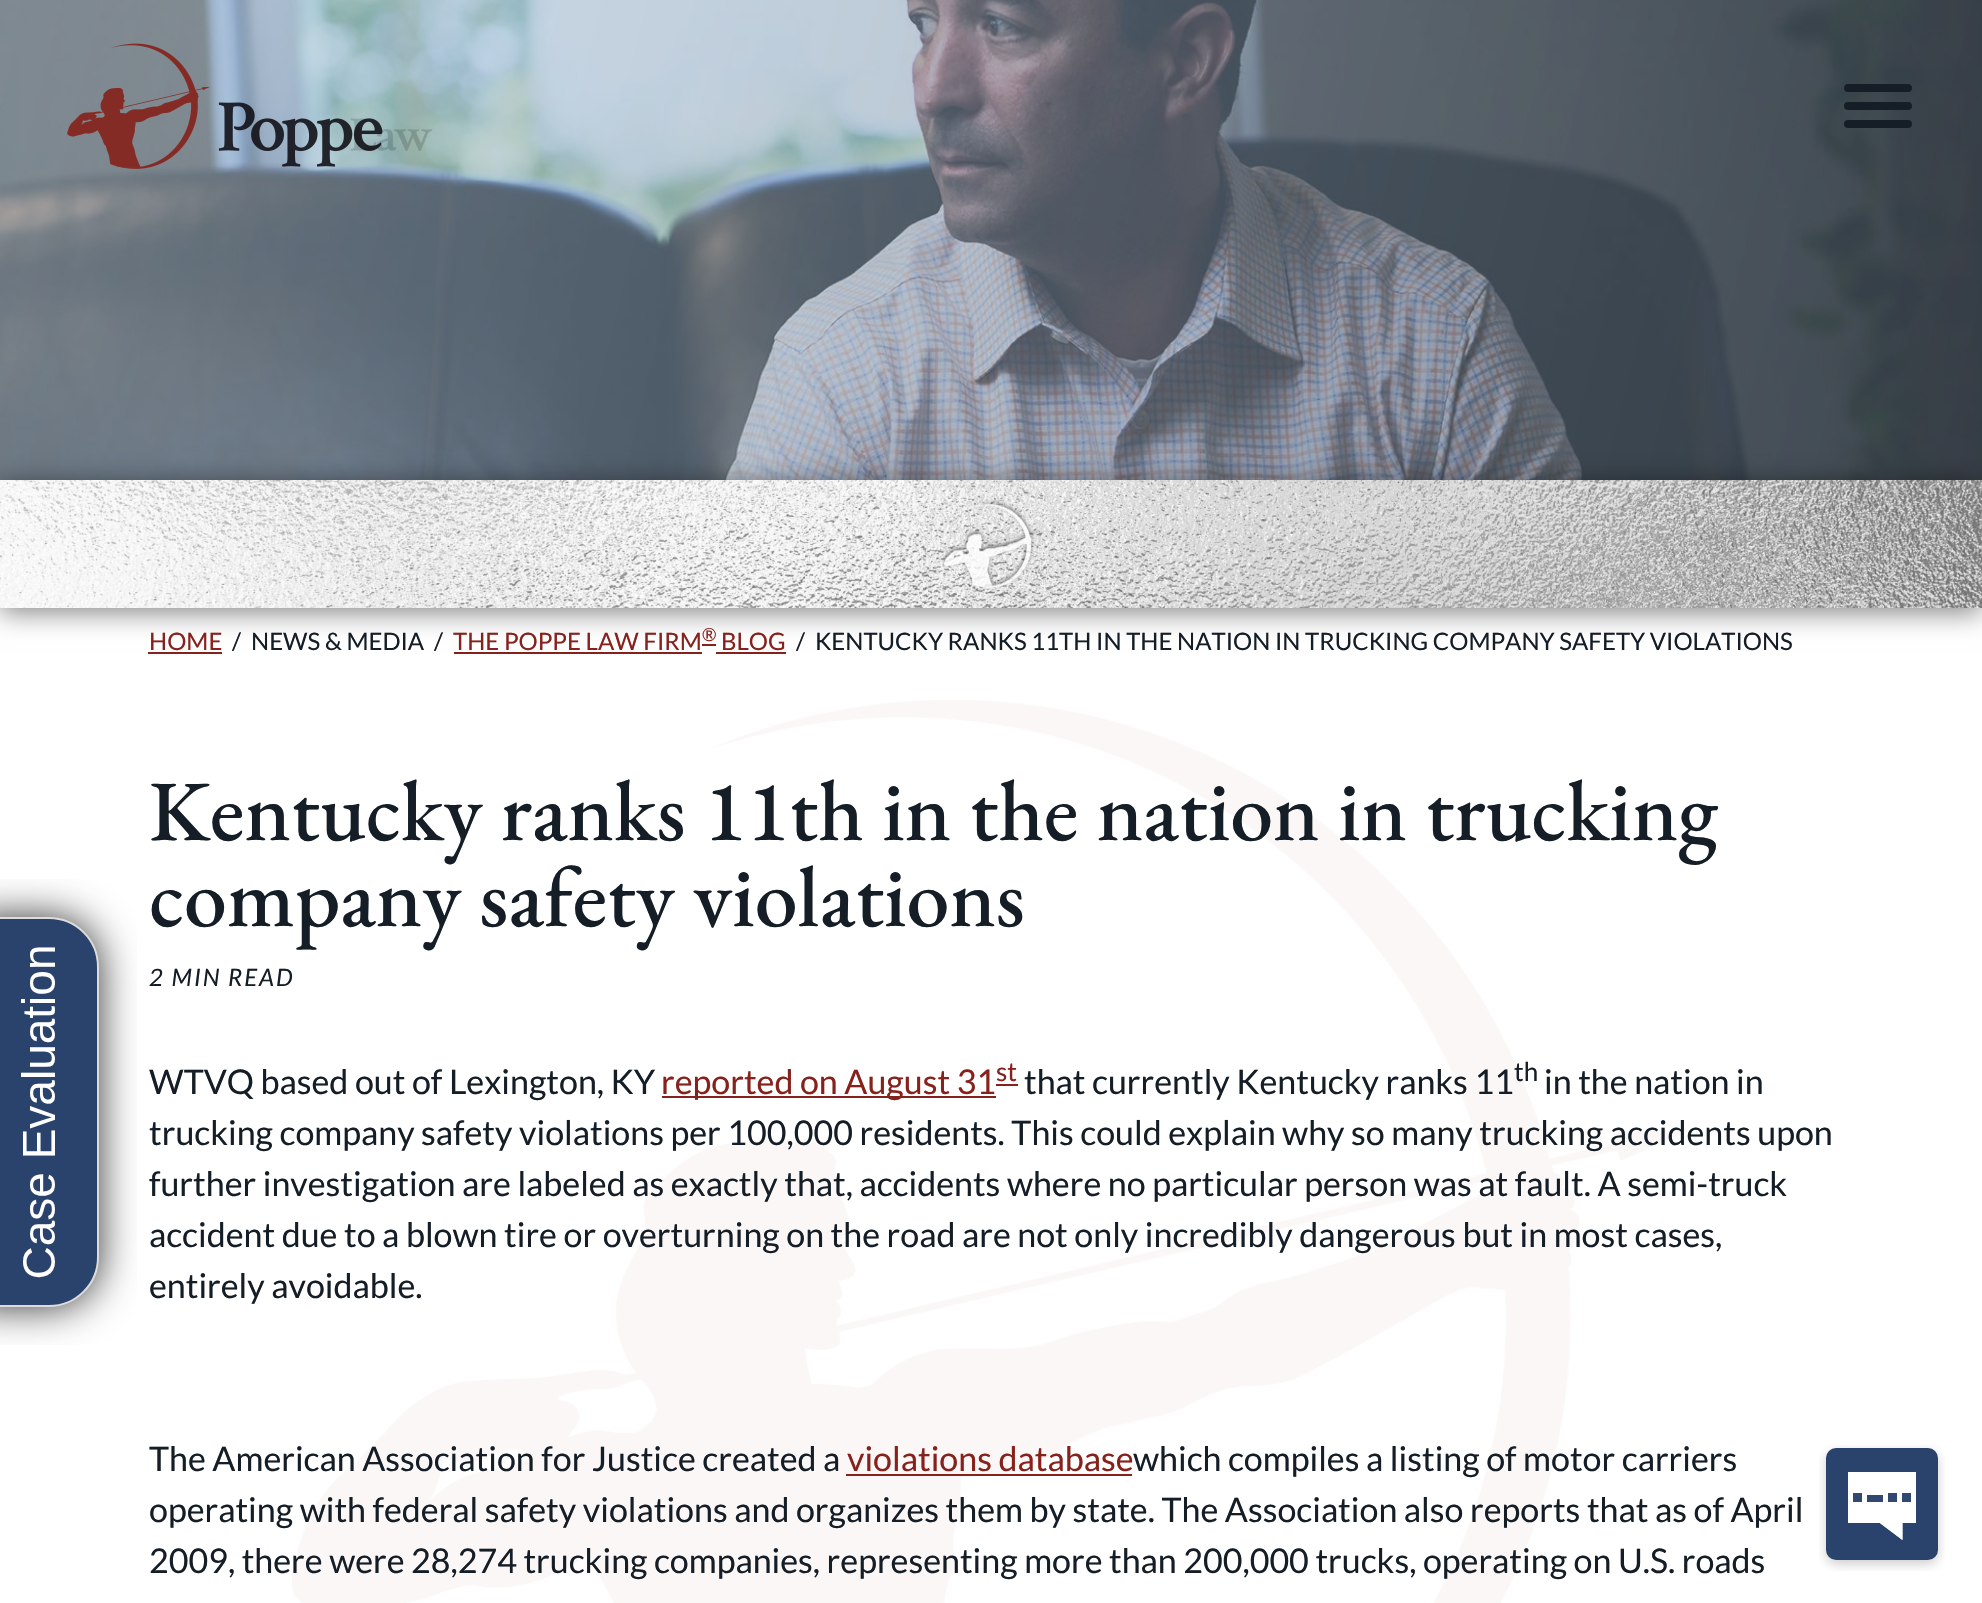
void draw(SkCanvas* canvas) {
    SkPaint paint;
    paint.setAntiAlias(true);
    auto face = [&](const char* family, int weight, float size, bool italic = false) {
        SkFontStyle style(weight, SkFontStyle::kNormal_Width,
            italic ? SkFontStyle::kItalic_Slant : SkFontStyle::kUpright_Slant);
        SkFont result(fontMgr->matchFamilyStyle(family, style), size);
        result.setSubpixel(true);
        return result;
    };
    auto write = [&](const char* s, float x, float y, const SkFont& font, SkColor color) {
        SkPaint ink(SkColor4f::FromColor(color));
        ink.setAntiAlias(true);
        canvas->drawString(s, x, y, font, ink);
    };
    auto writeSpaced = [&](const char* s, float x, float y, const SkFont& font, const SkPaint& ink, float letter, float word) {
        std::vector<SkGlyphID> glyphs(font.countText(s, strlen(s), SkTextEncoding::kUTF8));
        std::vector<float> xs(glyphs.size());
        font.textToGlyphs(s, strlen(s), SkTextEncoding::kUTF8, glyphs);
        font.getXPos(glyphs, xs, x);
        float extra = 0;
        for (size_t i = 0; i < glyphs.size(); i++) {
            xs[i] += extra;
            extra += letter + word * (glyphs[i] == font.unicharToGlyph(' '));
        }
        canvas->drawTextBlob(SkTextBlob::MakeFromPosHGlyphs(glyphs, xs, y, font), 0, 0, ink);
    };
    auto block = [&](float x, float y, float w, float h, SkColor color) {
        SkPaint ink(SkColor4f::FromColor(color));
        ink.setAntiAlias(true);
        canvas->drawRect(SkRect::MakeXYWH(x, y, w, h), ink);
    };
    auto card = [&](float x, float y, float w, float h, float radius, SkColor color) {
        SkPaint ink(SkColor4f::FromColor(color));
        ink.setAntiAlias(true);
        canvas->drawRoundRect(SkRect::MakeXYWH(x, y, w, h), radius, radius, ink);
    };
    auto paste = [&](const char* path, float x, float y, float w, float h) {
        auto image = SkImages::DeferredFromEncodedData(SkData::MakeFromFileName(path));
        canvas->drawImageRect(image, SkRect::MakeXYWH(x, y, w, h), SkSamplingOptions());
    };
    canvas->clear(SK_ColorWHITE);
    paste("pic4.png", 0, 0, 1982, 480);
    paste("pic1.png", 67, 43, 365, 126);
    card(1844, 84, 68, 8, 4, SkColorSetRGB(21, 30, 39));
    card(1844, 102, 68, 8, 4, SkColorSetRGB(21, 30, 39));
    card(1844, 120, 68, 8, 4, SkColorSetRGB(21, 30, 39));
    paste("pic2.png", 0, 879, 137, 466);
    paste("pic3.png", 292, 700, 1398, 903);
    block(702, 644, 14, 2, SkColorSetRGB(135, 33, 28));
    paint.setColor(SkColorSetARGB(128, 0, 0, 0));
    paint.setMaskFilter(SkMaskFilter::MakeBlur(kNormal_SkBlurStyle, 13));
    canvas->drawRect(SkRect::MakeXYWH(0, 484, 1982, 128), paint);
    paint.setMaskFilter(nullptr);
    paste("pic5.png", 0, 480, 1982, 128);
    paste("pic6.png", 941, 499, 99, 91);
    auto kFont1 = face("Lato", 400, 24);
    write("HOME", 149, 650, kFont1, SkColorSetRGB(135, 33, 28));
    block(148, 652, 74, 2, SkColorSetRGB(135, 33, 28));
    write("/", 232, 650, kFont1, SkColorSetRGB(21, 30, 39));
    write("NEWS & MEDIA", 251, 650, kFont1, SkColorSetRGB(21, 30, 39));
    write("/", 434, 650, kFont1, SkColorSetRGB(21, 30, 39));
    write("THE POPPE LAW FIRM", 453, 650, kFont1, SkColorSetRGB(135, 33, 28));
    block(454, 652, 248, 2, SkColorSetRGB(135, 33, 28));
    auto kFont2 = face("Lato", 400, 18);
    write("®", 702, 641, kFont2, SkColorSetRGB(135, 33, 28));
    write("BLOG", 721, 650, kFont1, SkColorSetRGB(135, 33, 28));
    block(716, 652, 70, 2, SkColorSetRGB(135, 33, 28));
    write("/", 796, 650, kFont1, SkColorSetRGB(21, 30, 39));
    write("KENTUCKY RANKS 11TH IN THE NATION IN TRUCKING COMPANY SAFETY VIOLATIONS", 815, 650, kFont1, SkColorSetRGB(21, 30, 39));
    auto kFont3 = face("EB Garamond", 500, 86);
    write("Kentucky ranks 11th in the nation in trucking", 149, 840, kFont3, SkColorSetRGB(21, 30, 39));
    write("company safety violations", 149, 926, kFont3, SkColorSetRGB(21, 30, 39));
    auto kFont4 = face("Lato", 400, 24, true);
    paint.setColor(SkColorSetRGB(21, 30, 39));
    writeSpaced("2 MIN READ", 149, 986, kFont4, paint, 2, 0);
    auto kFont5 = face("Lato", 400, 34);
    write("WTVQ based out of Lexington, KY", 149, 1094, kFont5, SkColorSetRGB(21, 30, 39));
    block(662, 1096, 334, 2, SkColorSetRGB(135, 33, 28));
    write("reported on August 31", 661, 1094, kFont5, SkColorSetRGB(135, 33, 28));
    block(996, 1084, 22, 2, SkColorSetRGB(135, 33, 28));
    auto kFont6 = face("Lato", 400, 26);
    write("st", 996, 1081, kFont6, SkColorSetRGB(135, 33, 28));
    write("that currently Kentucky ranks 11", 1024, 1094, kFont5, SkColorSetRGB(21, 30, 39));
    write("th", 1514, 1081, kFont6, SkColorSetRGB(21, 30, 39));
    write("in the nation in", 1544, 1094, kFont5, SkColorSetRGB(21, 30, 39));
    write("trucking company safety violations per 100,000 residents. This could explain why so many trucking accidents upon", 149, 1145, kFont5, SkColorSetRGB(21, 30, 39));
    write("further investigation are labeled as exactly that, accidents where no particular person was at fault. A semi-truck", 149, 1196, kFont5, SkColorSetRGB(21, 30, 39));
    write("accident due to a blown tire or overturning on the road are not only incredibly dangerous but in most cases,", 149, 1247, kFont5, SkColorSetRGB(21, 30, 39));
    write("entirely avoidable.", 149, 1298, kFont5, SkColorSetRGB(21, 30, 39));
    write("The American Association for Justice created a", 149, 1471, kFont5, SkColorSetRGB(21, 30, 39));
    write("violations database", 847, 1471, kFont5, SkColorSetRGB(135, 33, 28));
    block(846, 1474, 286, 2, SkColorSetRGB(135, 33, 28));
    write("which compiles a listing of motor carriers", 1133, 1471, kFont5, SkColorSetRGB(21, 30, 39));
    write("operating with federal safety violations and organizes them by state. The Association also reports that as of April", 149, 1522, kFont5, SkColorSetRGB(21, 30, 39));
    write("2009, there were 28,274 trucking companies, representing more than 200,000 trucks, operating on U.S. roads", 149, 1573, kFont5, SkColorSetRGB(21, 30, 39));
    paste("pic7.png", 1819, 1445, 126, 126);
}
